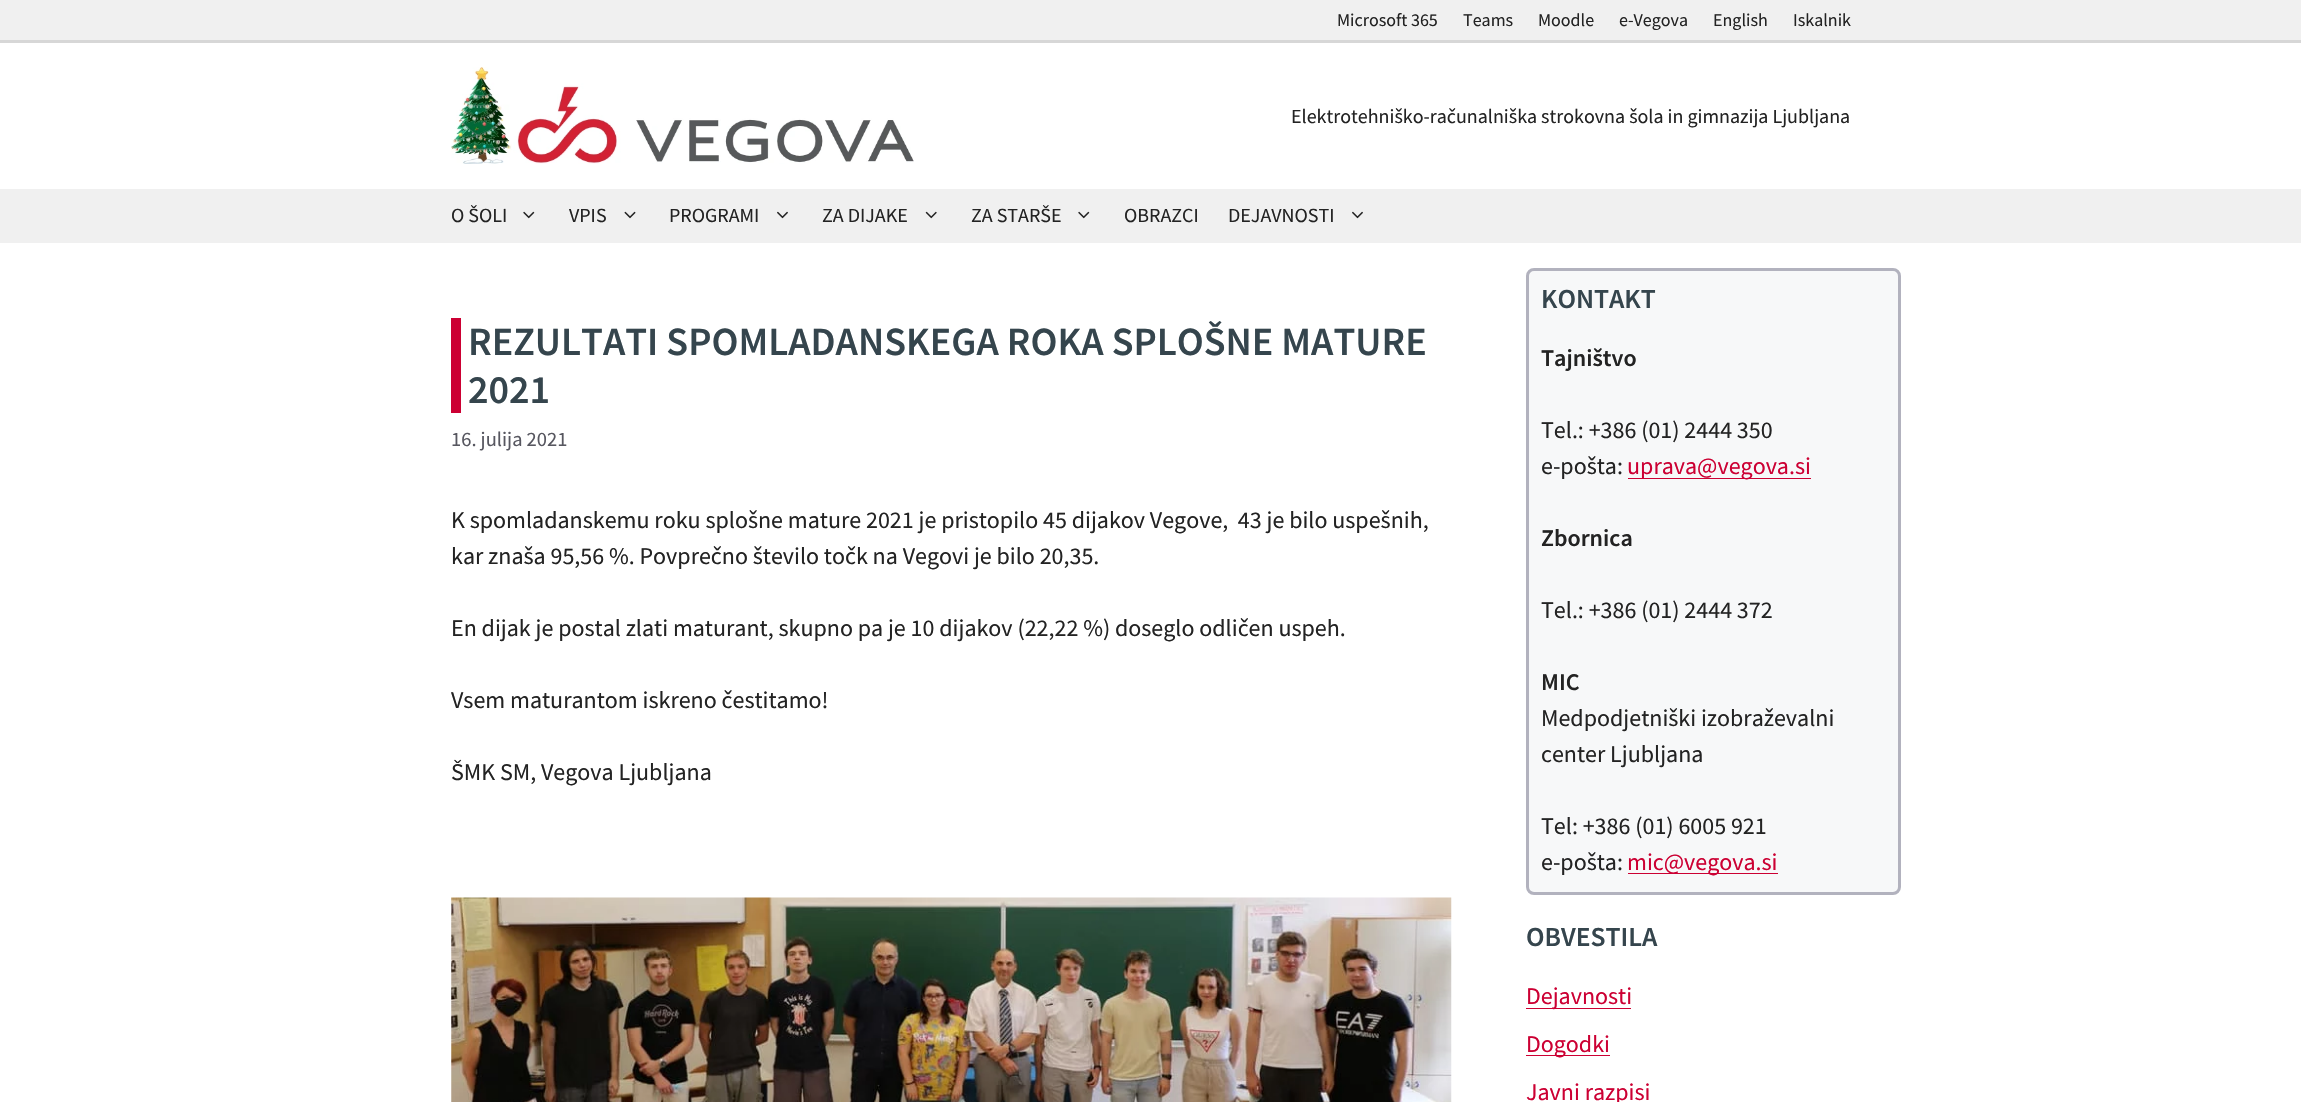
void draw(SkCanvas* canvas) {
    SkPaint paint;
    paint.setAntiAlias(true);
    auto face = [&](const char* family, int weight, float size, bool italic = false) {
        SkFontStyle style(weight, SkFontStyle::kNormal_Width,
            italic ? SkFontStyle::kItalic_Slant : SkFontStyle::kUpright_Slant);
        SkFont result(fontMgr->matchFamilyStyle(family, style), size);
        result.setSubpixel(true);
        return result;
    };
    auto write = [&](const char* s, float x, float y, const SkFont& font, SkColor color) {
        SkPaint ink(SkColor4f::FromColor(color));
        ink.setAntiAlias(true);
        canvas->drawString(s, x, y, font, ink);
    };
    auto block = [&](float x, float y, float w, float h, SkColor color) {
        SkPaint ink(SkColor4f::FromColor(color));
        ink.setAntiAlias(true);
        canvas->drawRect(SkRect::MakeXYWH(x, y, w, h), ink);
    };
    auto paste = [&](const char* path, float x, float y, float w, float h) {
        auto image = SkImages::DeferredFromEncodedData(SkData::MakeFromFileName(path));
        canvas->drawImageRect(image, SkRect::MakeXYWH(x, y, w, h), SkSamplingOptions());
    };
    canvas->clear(SK_ColorWHITE);
    block(0, 0, 2301, 40, SkColorSetRGB(240, 240, 240));
    auto kFont1 = face("Source Sans Pro", 400, 18);
    write("Microsoft 365", 1337, 26, kFont1, SkColorSetRGB(35, 35, 35));
    write("Teams", 1463, 26, kFont1, SkColorSetRGB(35, 35, 35));
    write("Moodle", 1538, 26, kFont1, SkColorSetRGB(35, 35, 35));
    write("e-Vegova", 1619, 26, kFont1, SkColorSetRGB(35, 35, 35));
    write("English", 1713, 26, kFont1, SkColorSetRGB(35, 35, 35));
    write("Iskalnik", 1793, 26, kFont1, SkColorSetRGB(35, 35, 35));
    block(0, 40, 2301, 3, SkColorSetRGB(215, 215, 215));
    paste("pic1.png", 451, 67, 463, 97);
    auto kFont2 = face("Source Sans Pro", 400, 20);
    write("Elektrotehniško-računalniška strokovna šola in gimnazija Ljubljana", 1291, 123, kFont2, SkColorSetRGB(35, 35, 35));
    block(0, 189, 2301, 54, SkColorSetRGB(240, 240, 240));
    write("O ŠOLI", 451, 222, kFont2, SkColorSetRGB(35, 35, 35));
    paste("pic2.png", 523, 211, 12, 8);
    write("VPIS", 569, 222, kFont2, SkColorSetRGB(35, 35, 35));
    paste("pic3.png", 624, 211, 12, 8);
    write("PROGRAMI", 669, 222, kFont2, SkColorSetRGB(35, 35, 35));
    paste("pic4.png", 777, 211, 11, 8);
    write("ZA DIJAKE", 822, 222, kFont2, SkColorSetRGB(35, 35, 35));
    paste("pic5.png", 925, 211, 12, 8);
    write("ZA STARŠE", 971, 222, kFont2, SkColorSetRGB(35, 35, 35));
    paste("pic2.png", 1078, 211, 12, 8);
    write("OBRAZCI", 1124, 222, kFont2, SkColorSetRGB(35, 35, 35));
    write("DEJAVNOSTI", 1228, 222, kFont2, SkColorSetRGB(35, 35, 35));
    paste("pic4.png", 1352, 211, 11, 8);
    block(451, 318, 10, 95, SkColorSetRGB(204, 0, 51));
    auto kFont3 = face("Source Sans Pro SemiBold", 600, 40);
    write("REZULTATI SPOMLADANSKEGA ROKA SPLOŠNE MATURE", 468, 355, kFont3, SkColorSetRGB(53, 69, 77));
    write("2021", 468, 403, kFont3, SkColorSetRGB(53, 69, 77));
    auto kFont4 = face("Source Sans Pro", 400, 20.5f);
    write("16. julija 2021", 451, 446, kFont4, SkColorSetRGB(87, 87, 96));
    auto kFont5 = face("Source Sans Pro", 400, 24);
    write("K spomladanskemu roku splošne mature 2021 je pristopilo 45 dijakov Vegove,  43 je bilo uspešnih,", 451, 528, kFont5, SkColorSetRGB(35, 35, 35));
    write("kar znaša 95,56 %. Povprečno število točk na Vegovi je bilo 20,35.", 451, 564, kFont5, SkColorSetRGB(35, 35, 35));
    write("En dijak je postal zlati maturant, skupno pa je 10 dijakov (22,22 %) doseglo odličen uspeh.", 451, 636, kFont5, SkColorSetRGB(35, 35, 35));
    write("Vsem maturantom iskreno čestitamo!", 451, 708, kFont5, SkColorSetRGB(35, 35, 35));
    write("ŠMK SM, Vegova Ljubljana", 451, 780, kFont5, SkColorSetRGB(35, 35, 35));
    paste("pic6.png", 451, 897, 1001, 205);
    paint.setColor(SkColorSetRGB(247, 248, 249));
    canvas->drawRoundRect(SkRect::MakeXYWH(1527.5f, 269.5f, 372, 624), 6.5f, 6.5f, paint);
    paint.setStyle(SkPaint::kStroke_Style);
    paint.setStrokeWidth(3);
    paint.setColor(SkColorSetRGB(178, 178, 190));
    canvas->drawRoundRect(SkRect::MakeXYWH(1527.5f, 269.5f, 372, 624), 6.5f, 6.5f, paint);
    auto kFont6 = face("Source Sans Pro SemiBold", 600, 27.5f);
    write("KONTAKT", 1541, 308, kFont6, SkColorSetRGB(53, 69, 77));
    auto kFont7 = face("Source Sans Pro SemiBold", 600, 24);
    write("Tajništvo", 1541, 366, kFont7, SkColorSetRGB(35, 35, 35));
    write("Tel.: +386 (01) 2444 350", 1541, 438, kFont5, SkColorSetRGB(35, 35, 35));
    write("e-pošta:", 1541, 474, kFont5, SkColorSetRGB(35, 35, 35));
    block(1628, 478, 183, 1, SkColorSetRGB(204, 0, 51));
    write("uprava@vegova.si", 1627, 474, kFont5, SkColorSetRGB(204, 0, 51));
    write("Zbornica", 1541, 546, kFont7, SkColorSetRGB(35, 35, 35));
    write("Tel.: +386 (01) 2444 372", 1541, 618, kFont5, SkColorSetRGB(35, 35, 35));
    write("MIC", 1541, 690, kFont7, SkColorSetRGB(35, 35, 35));
    write("Medpodjetniški izobraževalni", 1541, 726, kFont5, SkColorSetRGB(35, 35, 35));
    write("center Ljubljana", 1541, 762, kFont5, SkColorSetRGB(35, 35, 35));
    write("Tel: +386 (01) 6005 921", 1541, 834, kFont5, SkColorSetRGB(35, 35, 35));
    write("e-pošta:", 1541, 870, kFont5, SkColorSetRGB(35, 35, 35));
    block(1628, 873, 150, 1, SkColorSetRGB(204, 0, 51));
    write("mic@vegova.si", 1627, 870, kFont5, SkColorSetRGB(204, 0, 51));
    write("OBVESTILA", 1526, 946, kFont6, SkColorSetRGB(53, 69, 77));
    block(1526, 1008, 105, 1, SkColorSetRGB(204, 0, 51));
    write("Dejavnosti", 1526, 1004, kFont5, SkColorSetRGB(204, 0, 51));
    block(1526, 1055, 84, 1, SkColorSetRGB(204, 0, 51));
    write("Dogodki", 1526, 1052, kFont5, SkColorSetRGB(204, 0, 51));
    write("Javni razpisi", 1526, 1100, kFont5, SkColorSetRGB(204, 0, 51));
}
